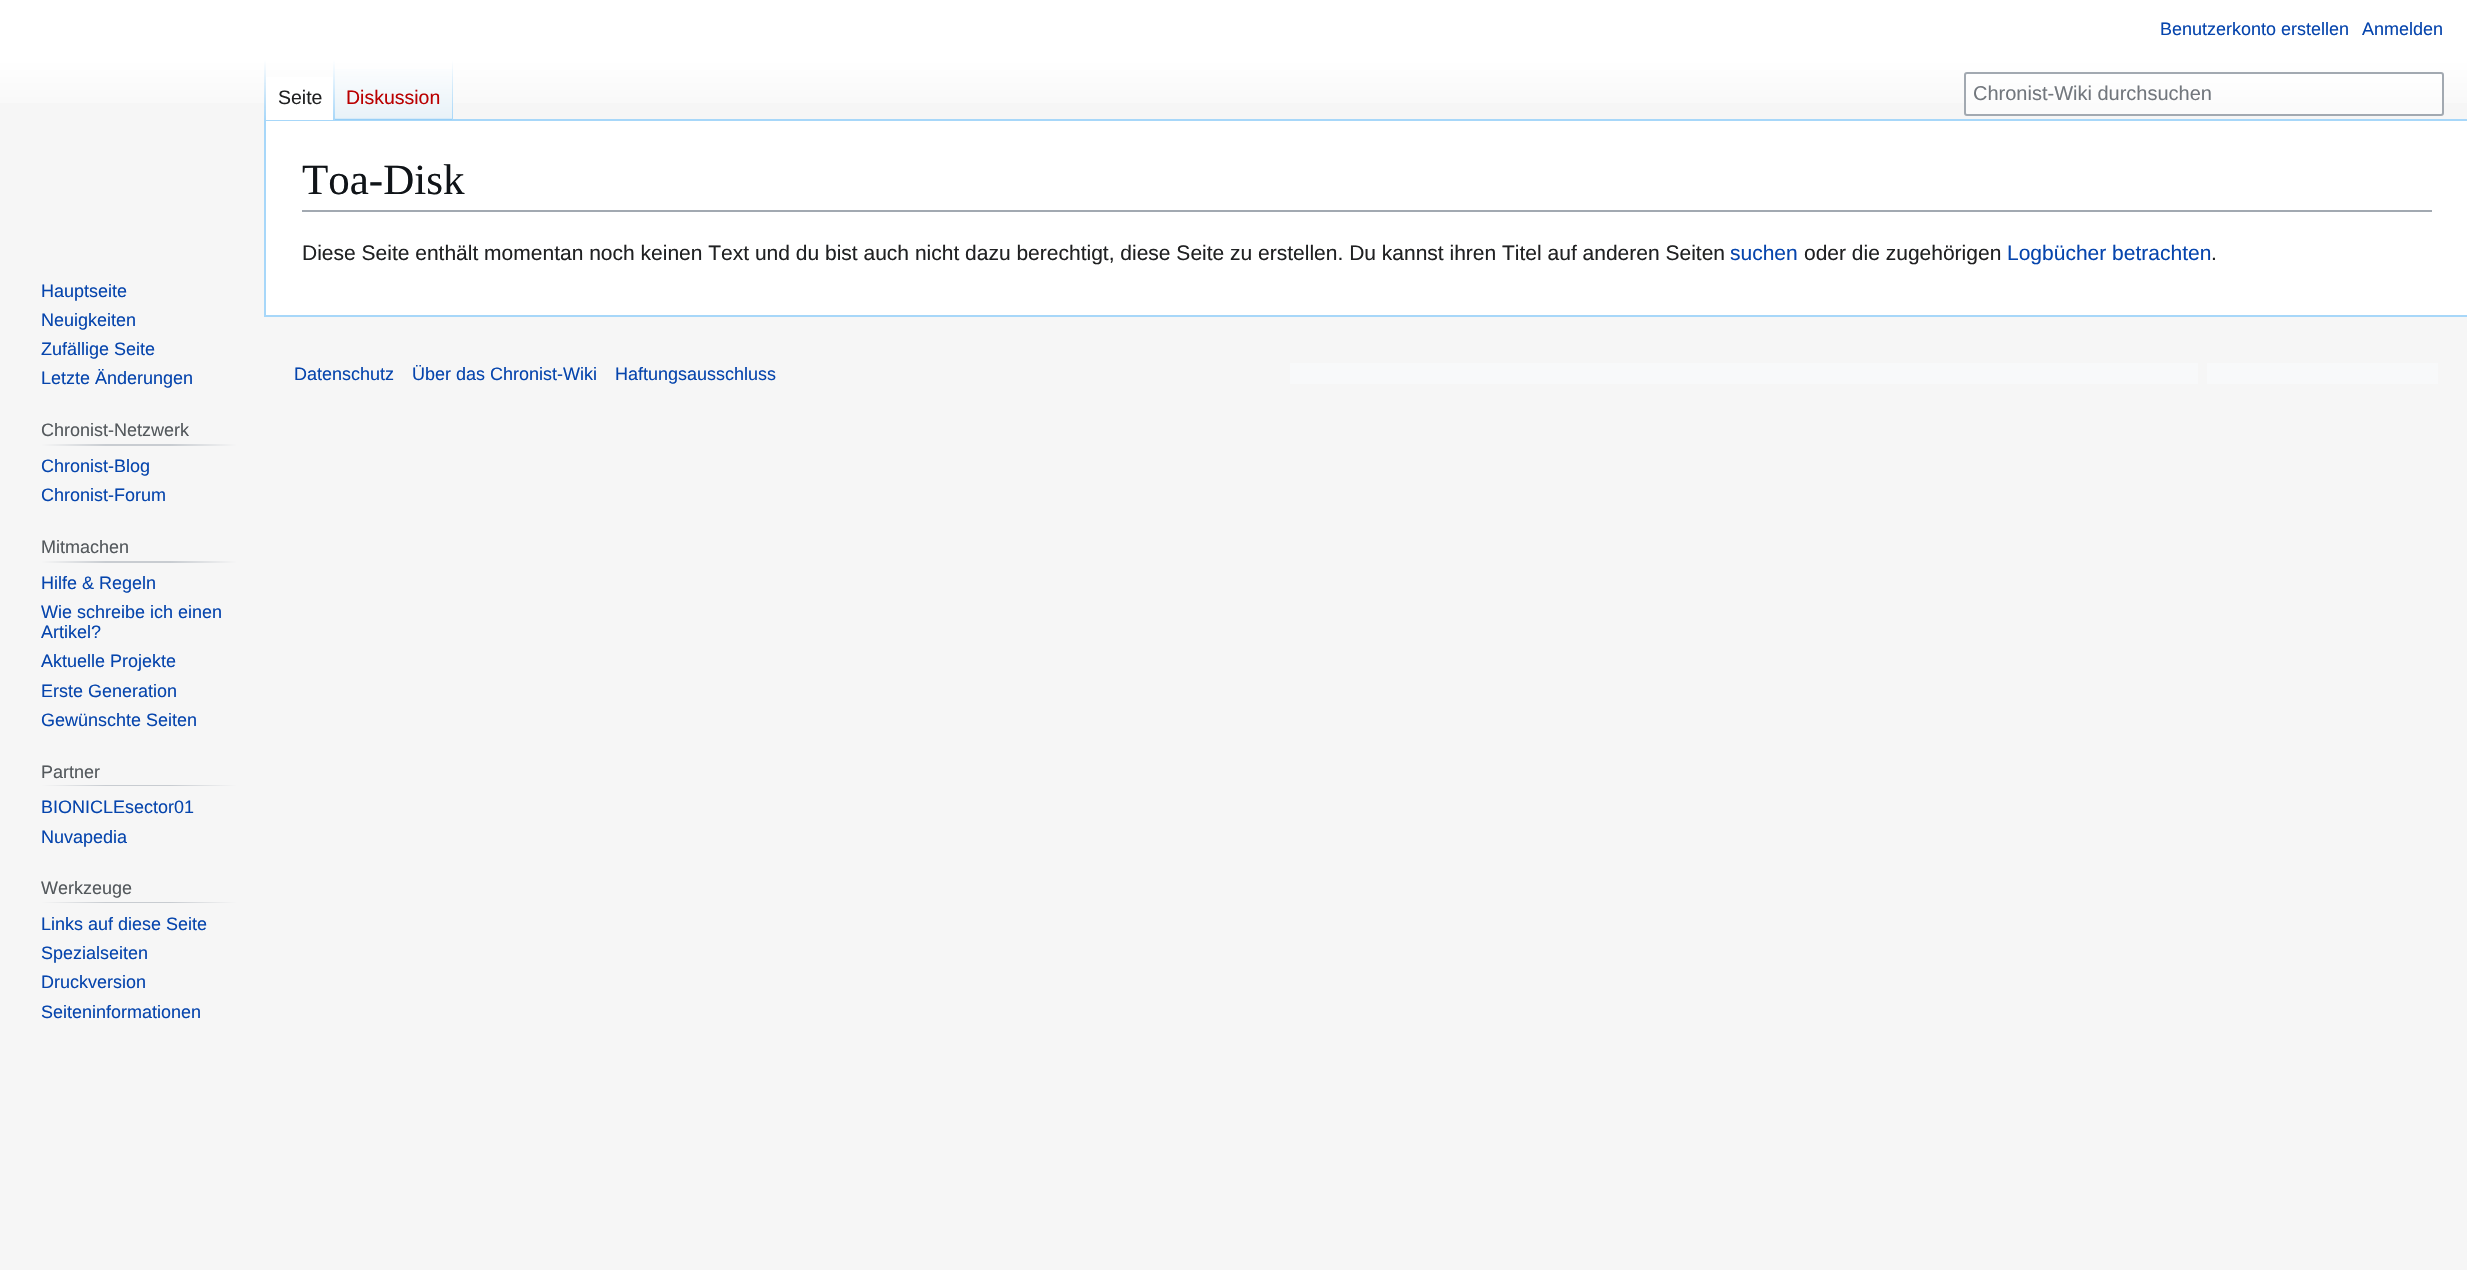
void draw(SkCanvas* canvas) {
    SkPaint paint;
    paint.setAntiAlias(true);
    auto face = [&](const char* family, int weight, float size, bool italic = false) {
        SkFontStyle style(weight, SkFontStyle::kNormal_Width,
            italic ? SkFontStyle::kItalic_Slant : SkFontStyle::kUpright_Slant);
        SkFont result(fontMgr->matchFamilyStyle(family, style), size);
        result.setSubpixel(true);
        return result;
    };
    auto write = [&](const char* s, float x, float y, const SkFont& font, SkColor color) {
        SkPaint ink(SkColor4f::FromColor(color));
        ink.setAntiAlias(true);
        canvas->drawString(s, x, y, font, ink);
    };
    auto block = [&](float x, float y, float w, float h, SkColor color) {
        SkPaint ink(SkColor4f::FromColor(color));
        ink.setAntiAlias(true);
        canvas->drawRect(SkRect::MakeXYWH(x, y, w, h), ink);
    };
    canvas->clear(SkColorSetRGB(246, 246, 246));
    {
        const SkColor colors[] = {SK_ColorWHITE, SkColorSetRGB(246, 246, 246)};
        const float stops[] = {0.5f, 1};
        const SkPoint ends[] = {{1234, 0}, {1234, 120}};
        paint.setShader(SkGradientShader::MakeLinear(ends, colors, stops, 2, SkTileMode::kClamp));
        paint.setAlpha(255);
    }
    canvas->drawRect(SkRect::MakeXYWH(0, 0, 2467, 103), paint);
    auto kFont1 = face("Liberation Sans", 400, 18);
    write("Benutzerkonto erstellen", 2160, 35, kFont1, SkColorSetRGB(6, 69, 173));
    write("Anmelden", 2362, 35, kFont1, SkColorSetRGB(6, 69, 173));
    block(264, 119, 2203, 2, SkColorSetRGB(167, 215, 249));
    block(264, 315, 2203, 2, SkColorSetRGB(167, 215, 249));
    block(264, 119, 2, 198, SkColorSetRGB(167, 215, 249));
    {
        const SkColor colors[] = {SkColorSetARGB(0, 167, 215, 249), SkColorSetRGB(167, 215, 249)};
        const float stops[] = {0, 1};
        const SkPoint ends[] = {{265, 60}, {265, 120}};
        paint.setShader(SkGradientShader::MakeLinear(ends, colors, stops, 2, SkTileMode::kClamp));
        paint.setAlpha(255);
    }
    canvas->drawRect(SkRect::MakeXYWH(264, 60, 2, 60), paint);
    block(266, 77, 67, 43, SK_ColorWHITE);
    {
        const SkColor colors[] = {SK_ColorWHITE, SkColorSetRGB(167, 215, 249)};
        const float stops[] = {0, 1};
        const SkPoint ends[] = {{334, 60}, {334, 120}};
        paint.setShader(SkGradientShader::MakeLinear(ends, colors, stops, 2, SkTileMode::kClamp));
        paint.setAlpha(255);
    }
    canvas->drawRect(SkRect::MakeXYWH(333, 60, 2, 60), paint);
    auto kFont2 = face("Liberation Sans", 400, 19.5f);
    write("Seite", 278, 104, kFont2, SkColorSetRGB(32, 33, 34));
    {
        const SkColor colors[] = {SkColorSetRGB(119, 193, 246), SkColorSetRGB(232, 242, 248), SK_ColorWHITE};
        const float stops[] = {0, 0.03f, 1};
        const SkPoint ends[] = {{394, 120}, {394, 60}};
        paint.setShader(SkGradientShader::MakeLinear(ends, colors, stops, 3, SkTileMode::kClamp));
        paint.setAlpha(255);
    }
    canvas->drawRect(SkRect::MakeXYWH(335, 69, 118, 51), paint);
    {
        const SkColor colors[] = {SkColorSetARGB(0, 167, 215, 249), SkColorSetRGB(167, 215, 249)};
        const float stops[] = {0, 1};
        const SkPoint ends[] = {{452, 60}, {452, 120}};
        paint.setShader(SkGradientShader::MakeLinear(ends, colors, stops, 2, SkTileMode::kClamp));
        paint.setAlpha(255);
    }
    canvas->drawRect(SkRect::MakeXYWH(452, 60, 1, 60), paint);
    write("Diskussion", 346, 104, kFont2, SkColorSetRGB(186, 0, 0));
    paint.setShader(nullptr);
    paint.setColor(SkColorSetARGB(128, 255, 255, 255));
    canvas->drawRoundRect(SkRect::MakeXYWH(1965, 73, 478, 42), 2, 2, paint);
    paint.setStyle(SkPaint::kStroke_Style);
    paint.setStrokeWidth(2);
    paint.setColor(SkColorSetRGB(162, 169, 177));
    canvas->drawRoundRect(SkRect::MakeXYWH(1965, 73, 478, 42), 2, 2, paint);
    auto kFont3 = face("Liberation Sans", 400, 20);
    write("Chronist-Wiki durchsuchen", 1973, 100, kFont3, SkColorSetRGB(114, 119, 125));
    write("Hauptseite", 41, 297, kFont1, SkColorSetRGB(6, 69, 173));
    write("Neuigkeiten", 41, 326, kFont1, SkColorSetRGB(6, 69, 173));
    write("Zufällige Seite", 41, 355, kFont1, SkColorSetRGB(6, 69, 173));
    write("Letzte Änderungen", 41, 384, kFont1, SkColorSetRGB(6, 69, 173));
    paint.setStyle(SkPaint::kFill_Style);
    {
        const SkColor colors[] = {SkColorSetRGB(246, 246, 246), SkColorSetRGB(200, 204, 209), SkColorSetRGB(200, 204, 209), SkColorSetRGB(246, 246, 246)};
        const float stops[] = {0, 0.33f, 0.66f, 1};
        const SkPoint ends[] = {{41, 445}, {237, 445}};
        paint.setShader(SkGradientShader::MakeLinear(ends, colors, stops, 4, SkTileMode::kClamp));
        paint.setAlpha(255);
    }
    canvas->drawRect(SkRect::MakeXYWH(41, 444, 196, 2), paint);
    write("Chronist-Netzwerk", 41, 436, kFont1, SkColorSetRGB(84, 89, 93));
    write("Chronist-Blog", 41, 472, kFont1, SkColorSetRGB(6, 69, 173));
    write("Chronist-Forum", 41, 501, kFont1, SkColorSetRGB(6, 69, 173));
    {
        const SkColor colors[] = {SkColorSetRGB(246, 246, 246), SkColorSetRGB(200, 204, 209), SkColorSetRGB(200, 204, 209), SkColorSetRGB(246, 246, 246)};
        const float stops[] = {0, 0.33f, 0.66f, 1};
        const SkPoint ends[] = {{41, 562}, {237, 562}};
        paint.setShader(SkGradientShader::MakeLinear(ends, colors, stops, 4, SkTileMode::kClamp));
        paint.setAlpha(255);
    }
    canvas->drawRect(SkRect::MakeXYWH(41, 561, 196, 2), paint);
    write("Mitmachen", 41, 553, kFont1, SkColorSetRGB(84, 89, 93));
    write("Hilfe & Regeln", 41, 589, kFont1, SkColorSetRGB(6, 69, 173));
    write("Wie schreibe ich einen", 41, 618, kFont1, SkColorSetRGB(6, 69, 173));
    write("Artikel?", 41, 638, kFont1, SkColorSetRGB(6, 69, 173));
    write("Aktuelle Projekte", 41, 667, kFont1, SkColorSetRGB(6, 69, 173));
    write("Erste Generation", 41, 697, kFont1, SkColorSetRGB(6, 69, 173));
    write("Gewünschte Seiten", 41, 726, kFont1, SkColorSetRGB(6, 69, 173));
    {
        const SkColor colors[] = {SkColorSetRGB(246, 246, 246), SkColorSetRGB(200, 204, 209), SkColorSetRGB(200, 204, 209), SkColorSetRGB(246, 246, 246)};
        const float stops[] = {0, 0.33f, 0.66f, 1};
        const SkPoint ends[] = {{41, 785}, {237, 785}};
        paint.setShader(SkGradientShader::MakeLinear(ends, colors, stops, 4, SkTileMode::kClamp));
        paint.setAlpha(255);
    }
    canvas->drawRect(SkRect::MakeXYWH(41, 785, 196, 1), paint);
    write("Partner", 41, 778, kFont1, SkColorSetRGB(84, 89, 93));
    write("BIONICLEsector01", 41, 813, kFont1, SkColorSetRGB(6, 69, 173));
    write("Nuvapedia", 41, 843, kFont1, SkColorSetRGB(6, 69, 173));
    {
        const SkColor colors[] = {SkColorSetRGB(246, 246, 246), SkColorSetRGB(200, 204, 209), SkColorSetRGB(200, 204, 209), SkColorSetRGB(246, 246, 246)};
        const float stops[] = {0, 0.33f, 0.66f, 1};
        const SkPoint ends[] = {{41, 902}, {237, 902}};
        paint.setShader(SkGradientShader::MakeLinear(ends, colors, stops, 4, SkTileMode::kClamp));
        paint.setAlpha(255);
    }
    canvas->drawRect(SkRect::MakeXYWH(41, 902, 196, 1), paint);
    write("Werkzeuge", 41, 894, kFont1, SkColorSetRGB(84, 89, 93));
    write("Links auf diese Seite", 41, 930, kFont1, SkColorSetRGB(6, 69, 173));
    write("Spezialseiten", 41, 959, kFont1, SkColorSetRGB(6, 69, 173));
    write("Druckversion", 41, 988, kFont1, SkColorSetRGB(6, 69, 173));
    write("Seiteninformationen", 41, 1018, kFont1, SkColorSetRGB(6, 69, 173));
    block(266, 121, 2201, 194, SK_ColorWHITE);
    block(302, 210, 2130, 2, SkColorSetRGB(162, 169, 177));
    auto kFont4 = face("Liberation Serif", 400, 43);
    write("Toa-Disk", 302, 194, kFont4, SkColorSetRGB(16, 20, 24));
    auto kFont5 = face("Liberation Sans", 400, 21);
    write("Diese Seite enthält momentan noch keinen Text und du bist auch nicht dazu berechtigt, diese Seite zu erstellen. Du kannst ihren Titel auf anderen Seiten", 302, 260, kFont5, SkColorSetRGB(32, 33, 34));
    write("suchen", 1730, 260, kFont5, SkColorSetRGB(6, 69, 173));
    write("oder die zugehörigen", 1804, 260, kFont5, SkColorSetRGB(32, 33, 34));
    write("Logbücher betrachten", 2007, 260, kFont5, SkColorSetRGB(6, 69, 173));
    write(".", 2211, 260, kFont5, SkColorSetRGB(32, 33, 34));
    write("Datenschutz", 294, 380, kFont1, SkColorSetRGB(6, 69, 173));
    write("Über das Chronist-Wiki", 412, 380, kFont1, SkColorSetRGB(6, 69, 173));
    write("Haftungsausschluss", 615, 380, kFont1, SkColorSetRGB(6, 69, 173));
    block(1290, 363, 908, 21, SkColorSetRGB(248, 249, 250));
    block(2207, 363, 231, 21, SkColorSetRGB(248, 249, 250));
}
